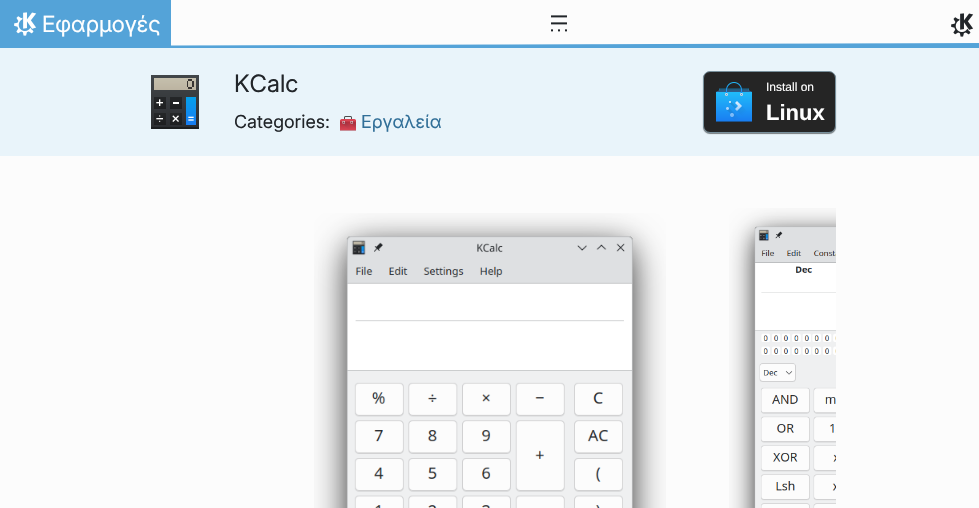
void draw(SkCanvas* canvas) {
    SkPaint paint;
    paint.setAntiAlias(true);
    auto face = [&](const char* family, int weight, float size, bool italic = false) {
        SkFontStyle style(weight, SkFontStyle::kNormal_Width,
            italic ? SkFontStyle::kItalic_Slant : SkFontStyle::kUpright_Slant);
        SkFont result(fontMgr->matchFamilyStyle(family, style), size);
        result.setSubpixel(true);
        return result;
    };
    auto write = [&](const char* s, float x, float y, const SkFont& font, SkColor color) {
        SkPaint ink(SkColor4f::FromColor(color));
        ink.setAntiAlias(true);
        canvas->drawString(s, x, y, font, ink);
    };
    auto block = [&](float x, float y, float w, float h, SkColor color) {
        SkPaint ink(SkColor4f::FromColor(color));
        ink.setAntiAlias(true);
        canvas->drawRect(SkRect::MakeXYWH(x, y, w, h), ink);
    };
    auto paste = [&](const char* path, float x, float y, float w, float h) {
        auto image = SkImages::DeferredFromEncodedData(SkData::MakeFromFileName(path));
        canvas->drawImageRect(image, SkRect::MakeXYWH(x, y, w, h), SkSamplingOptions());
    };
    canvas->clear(SkColorSetRGB(252, 252, 252));
    block(0, 0, 171, 48, SkColorSetRGB(84, 163, 216));
    paste("pic1.png", 14, 12, 23, 24);
    auto kFont1 = face("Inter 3", 400, 22.5f);
    write("Εφαρμογές", 42, 32, kFont1, SK_ColorWHITE);
    paste("pic2.png", 551, 15, 16, 17);
    paste("pic3.png", 951, 13, 23, 24);
    paste("pic4.png", 171, 43, 808, 5);
    block(0, 48, 979, 108, SkColorSetRGB(233, 244, 250));
    paste("pic5.png", 151, 75, 48, 54);
    auto kFont2 = face("Inter", 400, 24);
    write("KCalc", 234, 92, kFont2, SkColorSetRGB(33, 37, 41));
    auto kFont3 = face("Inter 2", 400, 18);
    write("Categories:", 234, 128, kFont3, SkColorSetRGB(33, 37, 41));
    paste("pic6.png", 340, 116, 16, 15);
    write("Εργαλεία", 361, 128, kFont3, SkColorSetRGB(49, 111, 152));
    paint.setColor(SkColorSetARGB(128, 1, 1, 1));
    paint.setMaskFilter(SkMaskFilter::MakeBlur(kNormal_SkBlurStyle, 0.5f));
    canvas->drawRoundRect(SkRect::MakeXYWH(703, 72, 133, 62), 7, 7, paint);
    paint.setMaskFilter(nullptr);
    paint.setColor(SkColorSetRGB(37, 37, 37));
    canvas->drawRoundRect(SkRect::MakeXYWH(703.5f, 71.5f, 132, 61), 6.5f, 6.5f, paint);
    paint.setStyle(SkPaint::kStroke_Style);
    paint.setStrokeWidth(1);
    paint.setColor(SkColorSetRGB(120, 144, 156));
    canvas->drawRoundRect(SkRect::MakeXYWH(703.5f, 71.5f, 132, 61), 6.5f, 6.5f, paint);
    paste("pic7.png", 716, 82, 36, 40);
    auto kFont4 = face("Liberation Sans", 400, 12);
    write("Install on", 766, 91, kFont4, SK_ColorWHITE);
    auto kFont5 = face("Liberation Sans", 700, 22);
    write("Linux", 766, 120, kFont5, SK_ColorWHITE);
    paste("pic8.png", 314, 213, 352, 295);
    paste("pic9.png", 729, 208, 107, 300);
}
